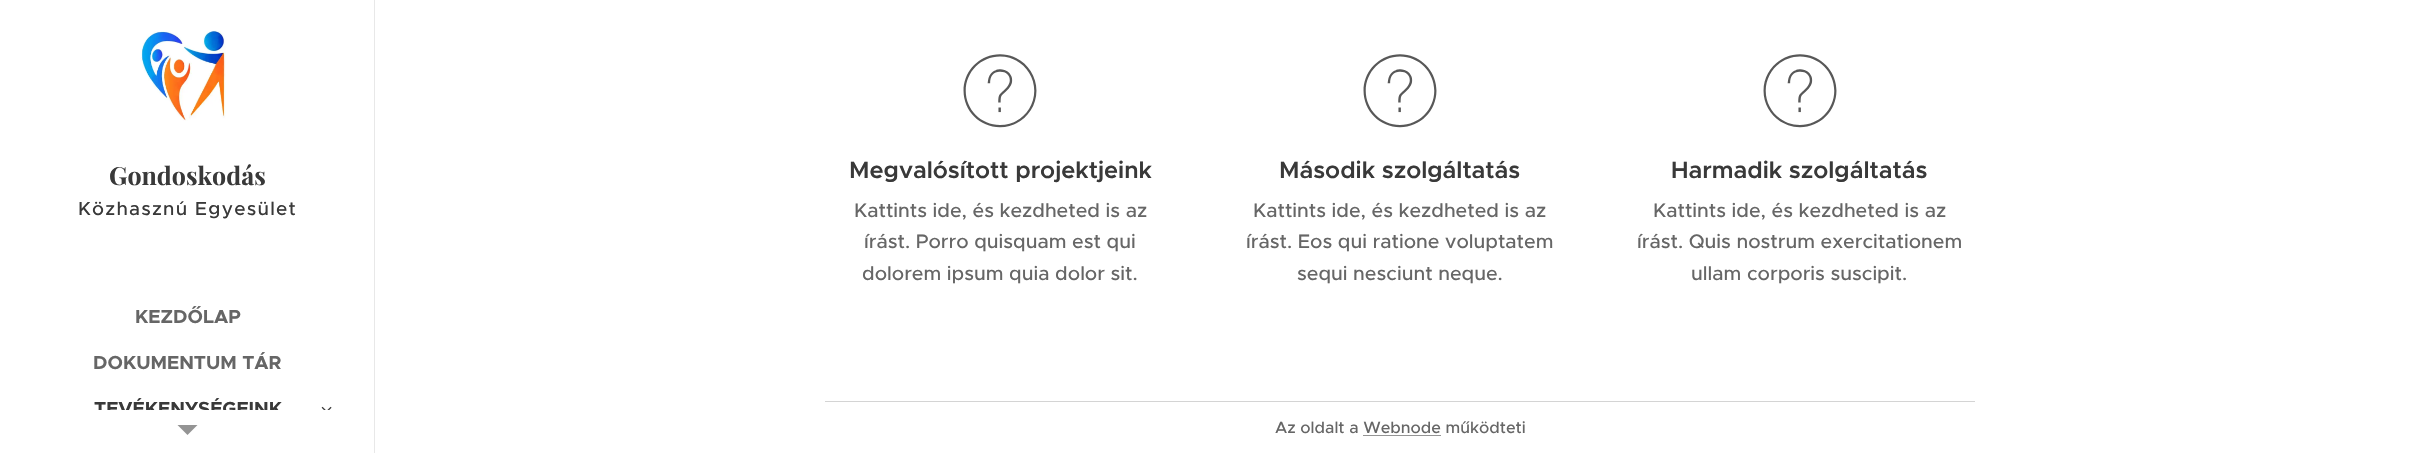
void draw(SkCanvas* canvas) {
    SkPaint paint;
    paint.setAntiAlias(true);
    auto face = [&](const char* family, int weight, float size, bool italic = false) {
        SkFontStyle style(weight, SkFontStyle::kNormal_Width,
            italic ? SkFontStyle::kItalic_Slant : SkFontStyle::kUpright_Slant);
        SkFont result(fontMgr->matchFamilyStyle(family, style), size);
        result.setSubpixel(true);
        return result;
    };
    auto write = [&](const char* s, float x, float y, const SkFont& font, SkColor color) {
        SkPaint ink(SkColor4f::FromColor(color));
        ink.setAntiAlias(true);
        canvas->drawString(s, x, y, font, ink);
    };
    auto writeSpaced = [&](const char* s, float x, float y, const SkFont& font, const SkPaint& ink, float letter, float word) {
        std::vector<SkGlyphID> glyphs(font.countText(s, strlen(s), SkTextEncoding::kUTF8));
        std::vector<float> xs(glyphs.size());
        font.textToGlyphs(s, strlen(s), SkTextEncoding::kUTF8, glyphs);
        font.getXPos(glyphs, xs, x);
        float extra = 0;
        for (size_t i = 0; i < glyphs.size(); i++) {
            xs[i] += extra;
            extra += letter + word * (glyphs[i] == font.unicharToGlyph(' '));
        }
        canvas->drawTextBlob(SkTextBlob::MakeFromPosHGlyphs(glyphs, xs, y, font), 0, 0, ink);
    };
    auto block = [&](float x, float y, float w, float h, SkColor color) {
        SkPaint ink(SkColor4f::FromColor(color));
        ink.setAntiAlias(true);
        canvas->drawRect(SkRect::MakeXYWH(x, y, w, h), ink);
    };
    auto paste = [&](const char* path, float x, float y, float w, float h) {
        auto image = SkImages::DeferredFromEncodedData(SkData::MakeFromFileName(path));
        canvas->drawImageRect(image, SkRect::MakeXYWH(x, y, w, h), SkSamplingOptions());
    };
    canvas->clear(SK_ColorWHITE);
    paste("pic1.png", 140, 30, 86, 91);
    auto kFont1 = face("Playfair Display", 700, 25);
    write("Gondoskodás", 109, 185, kFont1, SkColorSetRGB(57, 57, 57));
    auto kFont2 = face("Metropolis", 500, 19);
    paint.setColor(SkColorSetRGB(57, 57, 57));
    writeSpaced("Közhasznú Egyesület", 78, 215, kFont2, paint, 1.25f, 0);
    auto kFont3 = face("Metropolis", 700, 19);
    write("KEZDŐLAP", 135, 323, kFont3, SkColorSetRGB(102, 102, 102));
    write("DOKUMENTUM TÁR", 93, 369, kFont3, SkColorSetRGB(102, 102, 102));
    canvas->save();
    canvas->clipRect(SkRect::MakeXYWH(38, 394, 300, 16));
    write("TEVÉKENYSÉGEINK", 94, 415, kFont3, SkColorSetRGB(57, 57, 57));
    canvas->restore();
    paste("pic2.png", 321, 406, 11, 4);
    paint.setColor(SkColorSetRGB(148, 148, 148));
    canvas->drawPath(SkPathBuilder().moveTo(177.5f, 425).lineTo(197.5f, 425).lineTo(187.5f, 435).close().detach(), paint);
    block(374, 0, 1, 453, SkColorSetRGB(232, 232, 232));
    paste("pic3.png", 963, 54, 74, 74);
    auto kFont4 = face("Metropolis", 600, 23.75f);
    write("Megvalósított projektjeink", 849, 178, kFont4, SkColorSetRGB(57, 57, 57));
    auto kFont5 = face("Metropolis", 500, 19.6f);
    write("Kattints ide, és kezdheted is az", 854, 217, kFont5, SkColorSetRGB(102, 102, 102));
    write("írást. Porro quisquam est qui", 864, 248, kFont5, SkColorSetRGB(102, 102, 102));
    write("dolorem ipsum quia dolor sit.", 862, 280, kFont5, SkColorSetRGB(102, 102, 102));
    paste("pic4.png", 1363, 54, 74, 74);
    write("Második szolgáltatás", 1279, 178, kFont4, SkColorSetRGB(57, 57, 57));
    write("Kattints ide, és kezdheted is az", 1253, 217, kFont5, SkColorSetRGB(102, 102, 102));
    write("írást. Eos qui ratione voluptatem", 1246, 248, kFont5, SkColorSetRGB(102, 102, 102));
    write("sequi nesciunt neque.", 1297, 280, kFont5, SkColorSetRGB(102, 102, 102));
    paste("pic5.png", 1763, 54, 74, 74);
    write("Harmadik szolgáltatás", 1671, 178, kFont4, SkColorSetRGB(57, 57, 57));
    write("Kattints ide, és kezdheted is az", 1653, 217, kFont5, SkColorSetRGB(102, 102, 102));
    write("írást. Quis nostrum exercitationem", 1637, 248, kFont5, SkColorSetRGB(102, 102, 102));
    write("ullam corporis suscipit.", 1691, 280, kFont5, SkColorSetRGB(102, 102, 102));
    block(825, 401, 1150, 1, SkColorSetRGB(212, 212, 212));
    auto kFont6 = face("Metropolis", 500, 16.25f);
    write("Az oldalt a Webnode működteti", 1275, 433, kFont6, SkColorSetRGB(102, 102, 102));
    block(1363, 435, 78, 1, SkColorSetRGB(148, 148, 148));
}
